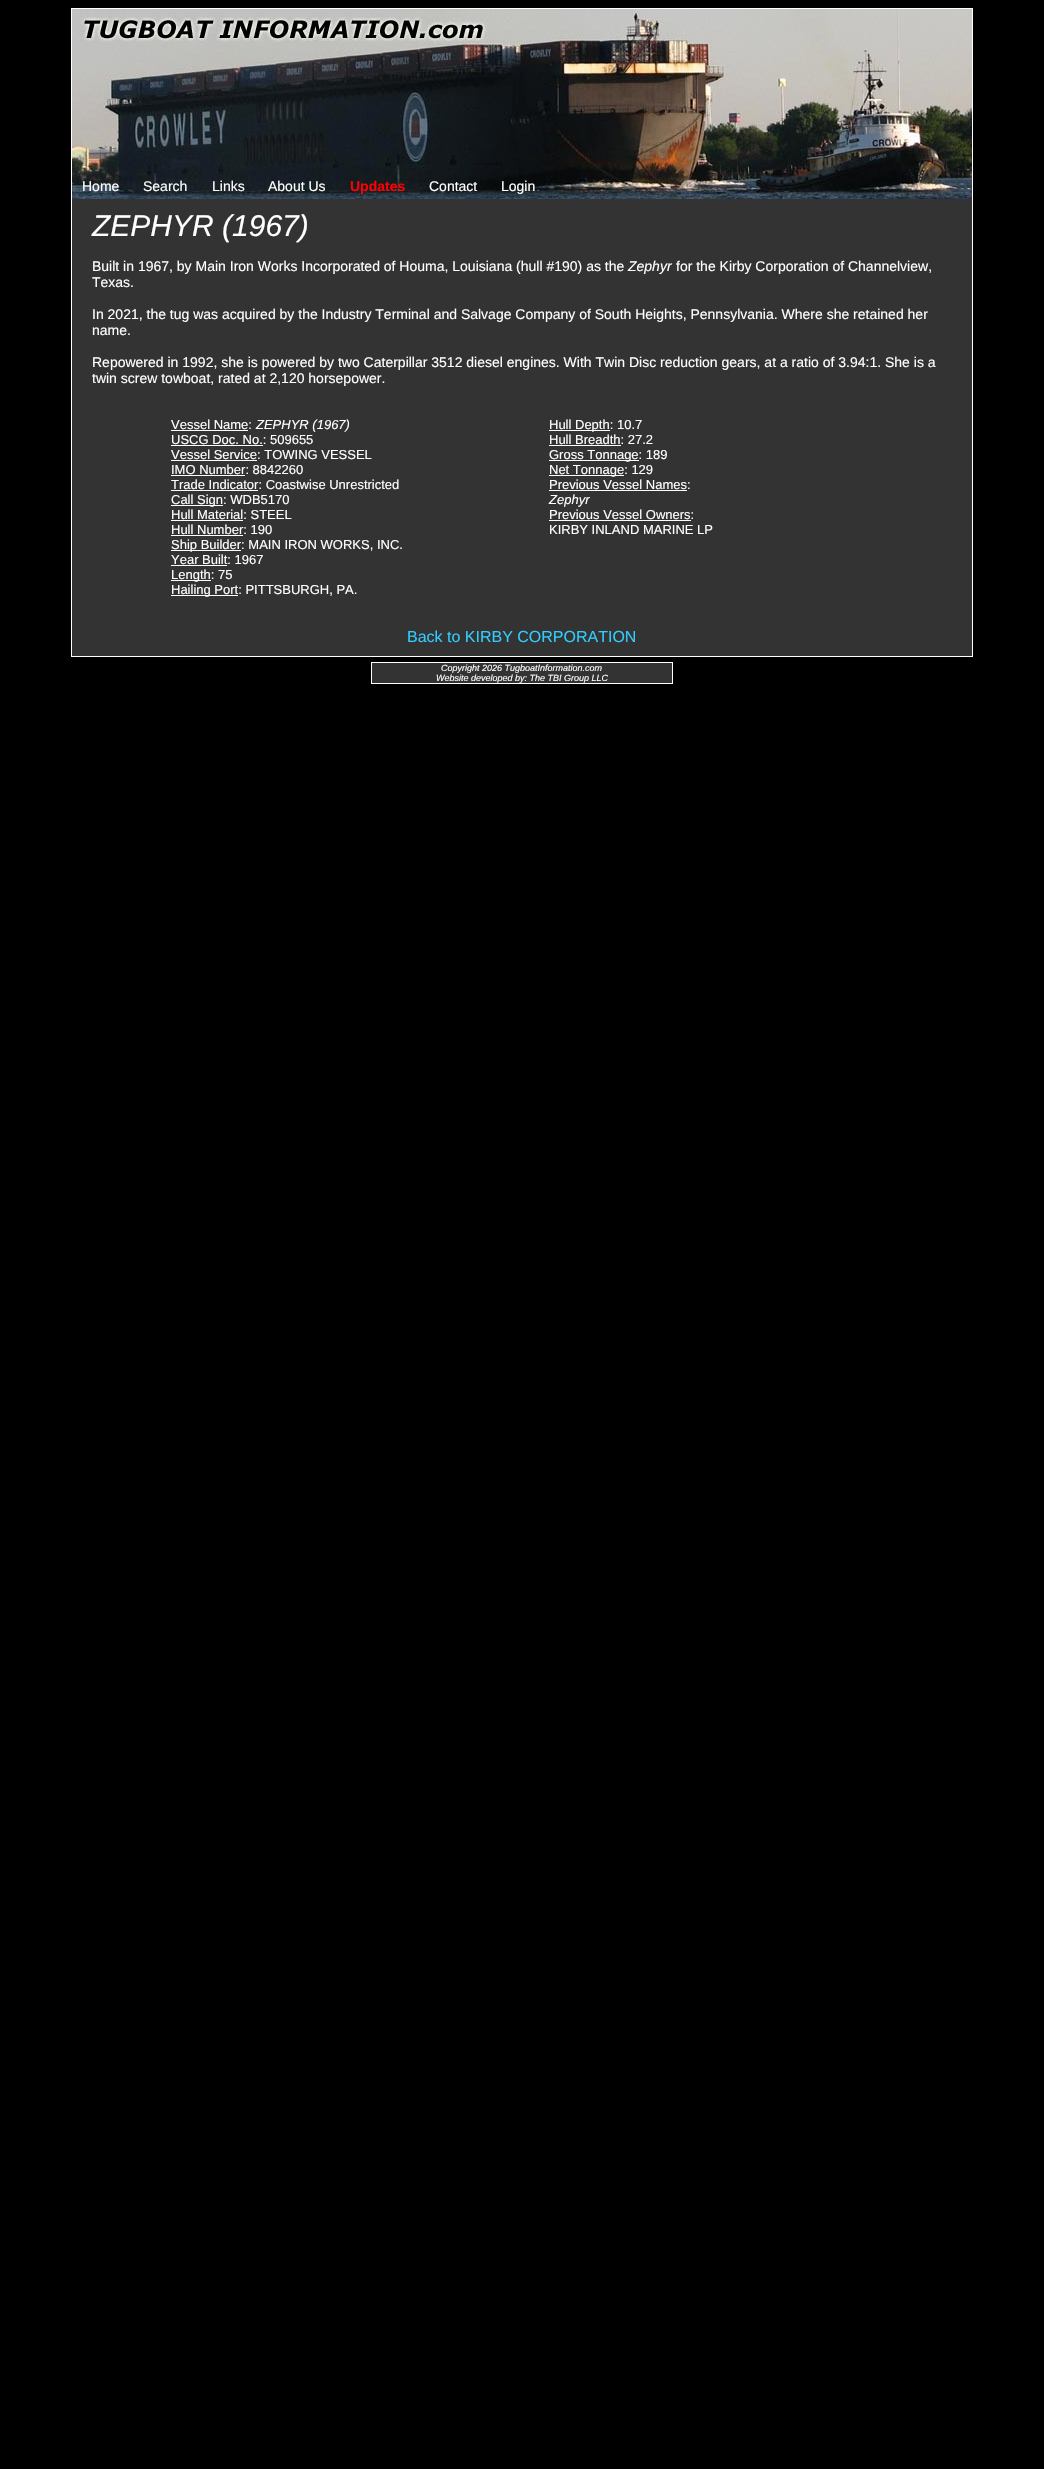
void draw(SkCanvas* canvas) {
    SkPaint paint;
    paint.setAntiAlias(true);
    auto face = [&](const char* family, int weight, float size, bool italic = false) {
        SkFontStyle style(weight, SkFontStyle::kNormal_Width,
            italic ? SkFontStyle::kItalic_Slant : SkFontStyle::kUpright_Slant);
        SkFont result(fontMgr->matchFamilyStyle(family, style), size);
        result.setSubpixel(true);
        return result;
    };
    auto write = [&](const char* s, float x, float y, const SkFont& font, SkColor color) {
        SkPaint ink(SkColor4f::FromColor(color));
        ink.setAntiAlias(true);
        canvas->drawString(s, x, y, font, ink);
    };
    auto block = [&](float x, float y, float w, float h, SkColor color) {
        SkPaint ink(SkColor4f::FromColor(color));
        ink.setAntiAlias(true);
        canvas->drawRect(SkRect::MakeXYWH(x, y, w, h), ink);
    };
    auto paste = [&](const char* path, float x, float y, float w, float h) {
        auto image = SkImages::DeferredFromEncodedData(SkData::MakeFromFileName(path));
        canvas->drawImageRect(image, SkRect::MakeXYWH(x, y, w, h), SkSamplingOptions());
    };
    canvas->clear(SK_ColorBLACK);
    paste("pic1.png", 72, 9, 900, 190);
    block(71, 8, 902, 1, SK_ColorWHITE);
    block(972, 8, 1, 191, SK_ColorWHITE);
    block(71, 8, 1, 191, SK_ColorWHITE);
    auto kFont1 = face("Liberation Sans", 400, 14);
    write("Home", 82, 191, kFont1, SK_ColorWHITE);
    write("Search", 143, 191, kFont1, SK_ColorWHITE);
    write("Links", 212, 191, kFont1, SK_ColorWHITE);
    write("About Us", 268, 191, kFont1, SK_ColorWHITE);
    auto kFont2 = face("Liberation Sans", 700, 14);
    write("Updates", 350, 191, kFont2, SkColorSetRGB(255, 0, 0));
    write("Contact", 429, 191, kFont1, SK_ColorWHITE);
    write("Login", 501, 191, kFont1, SK_ColorWHITE);
    block(72, 199, 900, 457, SkColorSetRGB(51, 51, 51));
    block(972, 199, 1, 458, SK_ColorWHITE);
    block(71, 656, 902, 1, SK_ColorWHITE);
    block(71, 199, 1, 458, SK_ColorWHITE);
    auto kFont3 = face("Liberation Sans", 400, 30, true);
    write("ZEPHYR (1967)", 92, 236, kFont3, SK_ColorWHITE);
    write("Built in 1967, by Main Iron Works Incorporated of Houma, Louisiana (hull #190) as the", 92, 271, kFont1, SK_ColorWHITE);
    auto kFont4 = face("Liberation Sans", 400, 14, true);
    write("Zephyr", 628, 271, kFont4, SK_ColorWHITE);
    write("for the Kirby Corporation of Channelview,", 676, 271, kFont1, SK_ColorWHITE);
    write("Texas.", 92, 287, kFont1, SK_ColorWHITE);
    write("In 2021, the tug was acquired by the Industry Terminal and Salvage Company of South Heights, Pennsylvania. Where she retained her", 92, 319, kFont1, SK_ColorWHITE);
    write("name.", 92, 335, kFont1, SK_ColorWHITE);
    write("Repowered in 1992, she is powered by two Caterpillar 3512 diesel engines. With Twin Disc reduction gears, at a ratio of 3.94:1. She is a", 92, 367, kFont1, SK_ColorWHITE);
    write("twin screw towboat, rated at 2,120 horsepower.", 92, 383, kFont1, SK_ColorWHITE);
    auto kFont5 = face("Liberation Sans", 400, 13);
    write("Vessel Name:", 171, 429, kFont5, SK_ColorWHITE);
    block(171, 430, 77, 1, SK_ColorWHITE);
    auto kFont6 = face("Liberation Sans", 400, 13, true);
    write("ZEPHYR (1967)", 256, 429, kFont6, SK_ColorWHITE);
    write("USCG Doc. No.: 509655", 171, 444, kFont5, SK_ColorWHITE);
    block(171, 445, 92, 1, SK_ColorWHITE);
    write("Vessel Service: TOWING VESSEL", 171, 459, kFont5, SK_ColorWHITE);
    block(171, 460, 86, 1, SK_ColorWHITE);
    write("IMO Number: 8842260", 171, 474, kFont5, SK_ColorWHITE);
    block(171, 475, 74, 1, SK_ColorWHITE);
    write("Trade Indicator: Coastwise Unrestricted", 171, 489, kFont5, SK_ColorWHITE);
    block(171, 490, 87, 1, SK_ColorWHITE);
    block(171, 505, 52, 1, SK_ColorWHITE);
    write("Call Sign: WDB5170", 171, 504, kFont5, SK_ColorWHITE);
    write("Hull Material: STEEL", 171, 519, kFont5, SK_ColorWHITE);
    block(171, 520, 72, 1, SK_ColorWHITE);
    write("Hull Number: 190", 171, 534, kFont5, SK_ColorWHITE);
    block(171, 535, 72, 1, SK_ColorWHITE);
    block(171, 550, 70, 1, SK_ColorWHITE);
    write("Ship Builder: MAIN IRON WORKS, INC.", 171, 549, kFont5, SK_ColorWHITE);
    write("Year Built: 1967", 171, 564, kFont5, SK_ColorWHITE);
    block(171, 565, 56, 1, SK_ColorWHITE);
    block(171, 580, 40, 1, SK_ColorWHITE);
    write("Length: 75", 171, 579, kFont5, SK_ColorWHITE);
    block(171, 595, 67, 1, SK_ColorWHITE);
    write("Hailing Port: PITTSBURGH, PA.", 171, 594, kFont5, SK_ColorWHITE);
    block(549, 430, 61, 1, SK_ColorWHITE);
    write("Hull Depth: 10.7", 549, 429, kFont5, SK_ColorWHITE);
    write("Hull Breadth: 27.2", 549, 444, kFont5, SK_ColorWHITE);
    block(549, 445, 72, 1, SK_ColorWHITE);
    block(549, 460, 90, 1, SK_ColorWHITE);
    write("Gross Tonnage: 189", 549, 459, kFont5, SK_ColorWHITE);
    block(549, 475, 75, 1, SK_ColorWHITE);
    write("Net Tonnage: 129", 549, 474, kFont5, SK_ColorWHITE);
    write("Previous Vessel Names:", 549, 489, kFont5, SK_ColorWHITE);
    block(549, 490, 138, 1, SK_ColorWHITE);
    write("Zephyr", 549, 504, kFont6, SK_ColorWHITE);
    write("Previous Vessel Owners:", 549, 519, kFont5, SK_ColorWHITE);
    block(549, 520, 142, 1, SK_ColorWHITE);
    write("KIRBY INLAND MARINE LP", 549, 534, kFont5, SK_ColorWHITE);
    auto kFont7 = face("Liberation Sans", 400, 16);
    write("Back to KIRBY CORPORATION", 407, 642, kFont7, SkColorSetRGB(51, 204, 255));
    paint.setColor(SkColorSetRGB(51, 51, 51));
    canvas->drawRect(SkRect::MakeXYWH(371.5f, 662.5f, 301, 21), paint);
    paint.setStyle(SkPaint::kStroke_Style);
    paint.setStrokeWidth(1);
    paint.setColor(SK_ColorWHITE);
    canvas->drawRect(SkRect::MakeXYWH(371.5f, 662.5f, 301, 21), paint);
    auto kFont8 = face("Liberation Sans", 400, 9, true);
    write("Copyright 2026 TugboatInformation.com", 441, 671, kFont8, SK_ColorWHITE);
    write("Website developed by: The TBI Group LLC", 436, 681, kFont8, SK_ColorWHITE);
}
